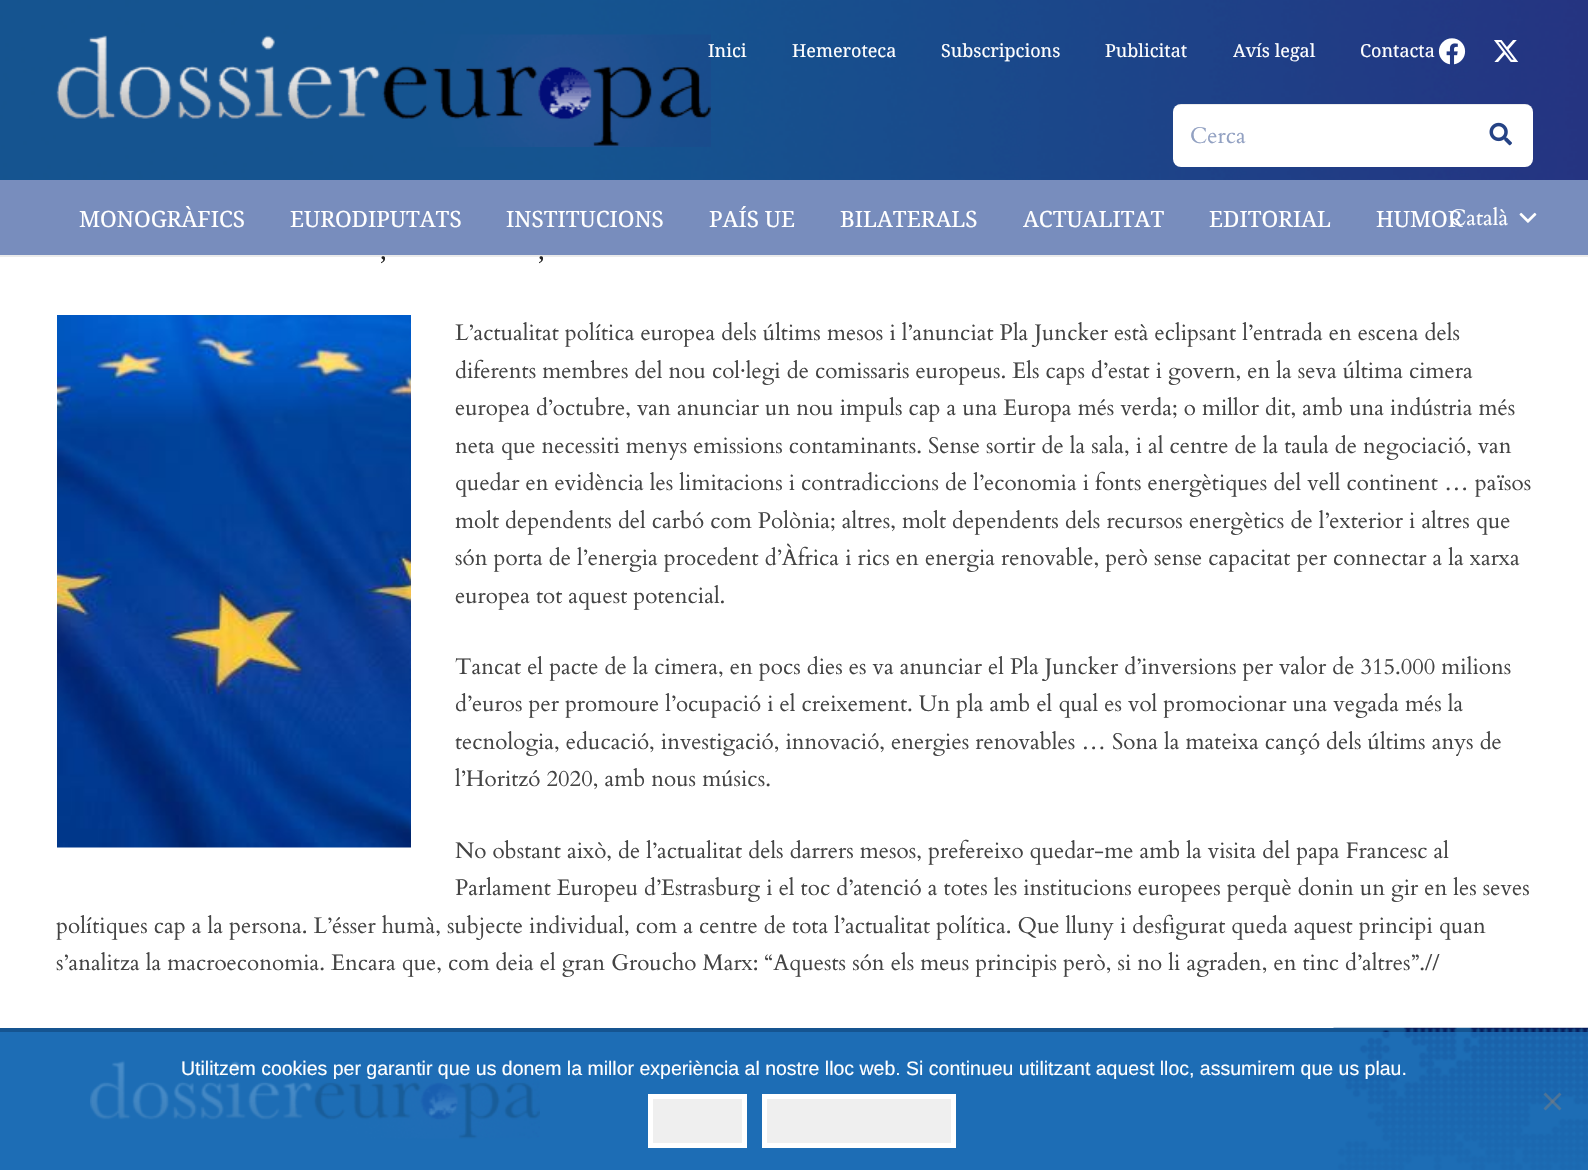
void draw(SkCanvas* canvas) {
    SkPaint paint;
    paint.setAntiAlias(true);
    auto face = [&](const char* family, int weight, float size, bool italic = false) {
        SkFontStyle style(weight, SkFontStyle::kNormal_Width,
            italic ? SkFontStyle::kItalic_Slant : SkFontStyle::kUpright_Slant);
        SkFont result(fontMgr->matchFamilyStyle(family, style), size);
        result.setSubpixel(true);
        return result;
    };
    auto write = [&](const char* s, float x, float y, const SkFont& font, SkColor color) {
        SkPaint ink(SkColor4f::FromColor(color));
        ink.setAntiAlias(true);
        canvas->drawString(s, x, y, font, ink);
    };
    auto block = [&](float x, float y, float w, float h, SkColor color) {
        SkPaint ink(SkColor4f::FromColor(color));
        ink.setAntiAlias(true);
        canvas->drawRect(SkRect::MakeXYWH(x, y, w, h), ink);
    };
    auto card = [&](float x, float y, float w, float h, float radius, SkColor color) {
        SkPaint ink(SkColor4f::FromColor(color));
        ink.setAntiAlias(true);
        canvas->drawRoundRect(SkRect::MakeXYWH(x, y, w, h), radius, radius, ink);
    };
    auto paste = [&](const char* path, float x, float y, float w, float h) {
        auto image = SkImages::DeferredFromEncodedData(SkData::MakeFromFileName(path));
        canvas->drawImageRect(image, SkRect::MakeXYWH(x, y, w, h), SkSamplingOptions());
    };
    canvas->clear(SK_ColorWHITE);
    paste("pic1.png", 0, 0, 1588, 180);
    paste("pic2.png", 56, 34, 655, 113);
    auto kFont1 = face("Noto Serif", 400, 18);
    write("Inici", 708, 57, kFont1, SK_ColorWHITE);
    write("Hemeroteca", 792, 57, kFont1, SK_ColorWHITE);
    write("Subscripcions", 941, 57, kFont1, SK_ColorWHITE);
    write("Publicitat", 1105, 57, kFont1, SK_ColorWHITE);
    write("Avís legal", 1233, 57, kFont1, SK_ColorWHITE);
    write("Contacta", 1360, 57, kFont1, SK_ColorWHITE);
    paste("pic3.png", 1438, 38, 28, 27);
    paste("pic4.png", 1494, 40, 25, 22);
    card(1173, 104, 360, 63, 8, SK_ColorWHITE);
    paint.setColor(SkColorSetARGB(20, 0, 0, 0));
    canvas->drawPath(SkPathBuilder().moveTo(1180, 105).lineTo(1526, 105).cubicTo(1530, 105, 1533, 108, 1533, 112).cubicTo(1533, 108, 1529, 104, 1525, 104).lineTo(1181, 104).cubicTo(1177, 104, 1173, 108, 1173, 112).cubicTo(1173, 108, 1176, 105, 1180, 105).close().detach(), paint);
    auto kFont2 = face("Cardo", 400, 22.5f);
    write("Cerca", 1190, 143, kFont2, SkColorSetRGB(146, 161, 194));
    paste("pic5.png", 1489, 122, 23, 24);
    canvas->drawPath(SkPathBuilder().moveTo(0, 255).lineTo(0, 257).lineTo(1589, 257).lineTo(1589, 182).lineTo(1588, 182).lineTo(1588, 255).close().detach(), paint);
    block(0, 180, 1588, 75, SkColorSetRGB(120, 141, 189));
    auto kFont3 = face("Noto Serif", 400, 22.5f);
    write("MONOGRÀFICS", 79, 227, kFont3, SK_ColorWHITE);
    write("EURODIPUTATS", 290, 227, kFont3, SK_ColorWHITE);
    write("INSTITUCIONS", 506, 227, kFont3, SK_ColorWHITE);
    write("PAÍS UE", 709, 227, kFont3, SK_ColorWHITE);
    write("BILATERALS", 840, 227, kFont3, SK_ColorWHITE);
    write("ACTUALITAT", 1023, 227, kFont3, SK_ColorWHITE);
    write("EDITORIAL", 1209, 227, kFont3, SK_ColorWHITE);
    write("HUMOR", 1376, 227, kFont3, SK_ColorWHITE);
    write("Català", 1449, 225, kFont2, SK_ColorWHITE);
    paste("pic6.png", 1519, 212, 18, 11);
    auto kFont4 = face("Liberation Serif", 400, 27);
    write(",", 380, 259, kFont4, SkColorSetRGB(34, 34, 34));
    write(",", 538, 259, kFont4, SkColorSetRGB(34, 34, 34));
    paste("pic7.png", 57, 315, 354, 533);
    write("L’actualitat política europea dels últims mesos i l’anunciat Pla Juncker està eclipsant l’entrada en escena dels", 455, 340, kFont2, SkColorSetRGB(68, 68, 68));
    write("diferents membres del nou col·legi de comissaris europeus. Els caps d’estat i govern, en la seva última cimera", 455, 378, kFont2, SkColorSetRGB(68, 68, 68));
    write("europea d’octubre, van anunciar un nou impuls cap a una Europa més verda; o millor dit, amb una indústria més", 455, 415, kFont2, SkColorSetRGB(68, 68, 68));
    write("neta que necessiti menys emissions contaminants. Sense sortir de la sala, i al centre de la taula de negociació, van", 455, 453, kFont2, SkColorSetRGB(68, 68, 68));
    write("quedar en evidència les limitacions i contradiccions de l’economia i fonts energètiques del vell continent … països", 455, 490, kFont2, SkColorSetRGB(68, 68, 68));
    write("molt dependents del carbó com Polònia; altres, molt dependents dels recursos energètics de l’exterior i altres que", 455, 528, kFont2, SkColorSetRGB(68, 68, 68));
    write("són porta de l’energia procedent d’Àfrica i rics en energia renovable, però sense capacitat per connectar a la xarxa", 455, 565, kFont2, SkColorSetRGB(68, 68, 68));
    write("europea tot aquest potencial.", 455, 603, kFont2, SkColorSetRGB(68, 68, 68));
    write("Tancat el pacte de la cimera, en pocs dies es va anunciar el Pla Juncker d’inversions per valor de 315.000 milions", 455, 674, kFont2, SkColorSetRGB(68, 68, 68));
    write("d’euros per promoure l’ocupació i el creixement. Un pla amb el qual es vol promocionar una vegada més la", 455, 711, kFont2, SkColorSetRGB(68, 68, 68));
    write("tecnologia, educació, investigació, innovació, energies renovables … Sona la mateixa cançó dels últims anys de", 455, 749, kFont2, SkColorSetRGB(68, 68, 68));
    write("l’Horitzó 2020, amb nous músics.", 455, 786, kFont2, SkColorSetRGB(68, 68, 68));
    write("No obstant això, de l’actualitat dels darrers mesos, prefereixo quedar-me amb la visita del papa Francesc al", 455, 858, kFont2, SkColorSetRGB(68, 68, 68));
    write("Parlament Europeu d’Estrasburg i el toc d’atenció a totes les institucions europees perquè donin un gir en les seves", 455, 895, kFont2, SkColorSetRGB(68, 68, 68));
    write("polítiques cap a la persona. L’ésser humà, subjecte individual, com a centre de tota l’actualitat política. Que lluny i desfigurat queda aquest principi quan", 56, 933, kFont2, SkColorSetRGB(68, 68, 68));
    write("s’analitza la macroeconomia. Encara que, com deia el gran Groucho Marx: “Aquests són els meus principis però, si no li agraden, en tinc d’altres”.//", 56, 970, kFont2, SkColorSetRGB(68, 68, 68));
    block(0, 1028, 1334, 142, SkColorSetRGB(21, 84, 144));
    paste("pic8.png", 90, 1060, 450, 79);
    paste("pic9.png", 1333, 1027, 255, 143);
    block(0, 1032, 1588, 138, SkColorSetARGB(204, 30, 115, 190));
    auto kFont5 = face("Liberation Sans", 400, 19.5f);
    write("Utilitzem cookies per garantir que us donem la millor experiència al nostre lloc web. Si continueu utilitzant aquest lloc, assumirem que us plau.", 181, 1075, kFont5, SK_ColorWHITE);
    paint.setColor(SkColorSetRGB(239, 239, 239));
    canvas->drawRect(SkRect::MakeXYWH(650.5f, 1096.5f, 94, 49), paint);
    paint.setStyle(SkPaint::kStroke_Style);
    paint.setStrokeWidth(5);
    paint.setColor(SK_ColorWHITE);
    canvas->drawRect(SkRect::MakeXYWH(650.5f, 1096.5f, 94, 49), paint);
    paint.setStyle(SkPaint::kFill_Style);
    paint.setColor(SkColorSetRGB(239, 239, 239));
    canvas->drawRect(SkRect::MakeXYWH(764.5f, 1096.5f, 189, 49), paint);
    paint.setStyle(SkPaint::kStroke_Style);
    paint.setColor(SK_ColorWHITE);
    canvas->drawRect(SkRect::MakeXYWH(764.5f, 1096.5f, 189, 49), paint);
    paint.setStyle(SkPaint::kFill_Style);
    paint.setColor(SkColorSetARGB(128, 128, 128, 128));
    canvas->drawPath(SkPathBuilder().moveTo(1559.5f, 1092.5f).lineTo(1561.5f, 1094.5f).lineTo(1545.5f, 1110.5f).lineTo(1543.5f, 1108.5f).close().detach(), paint);
    canvas->drawPath(SkPathBuilder().moveTo(1543.5f, 1094.5f).lineTo(1545.5f, 1092.5f).lineTo(1561.5f, 1108.5f).lineTo(1559.5f, 1110.5f).close().detach(), paint);
}
